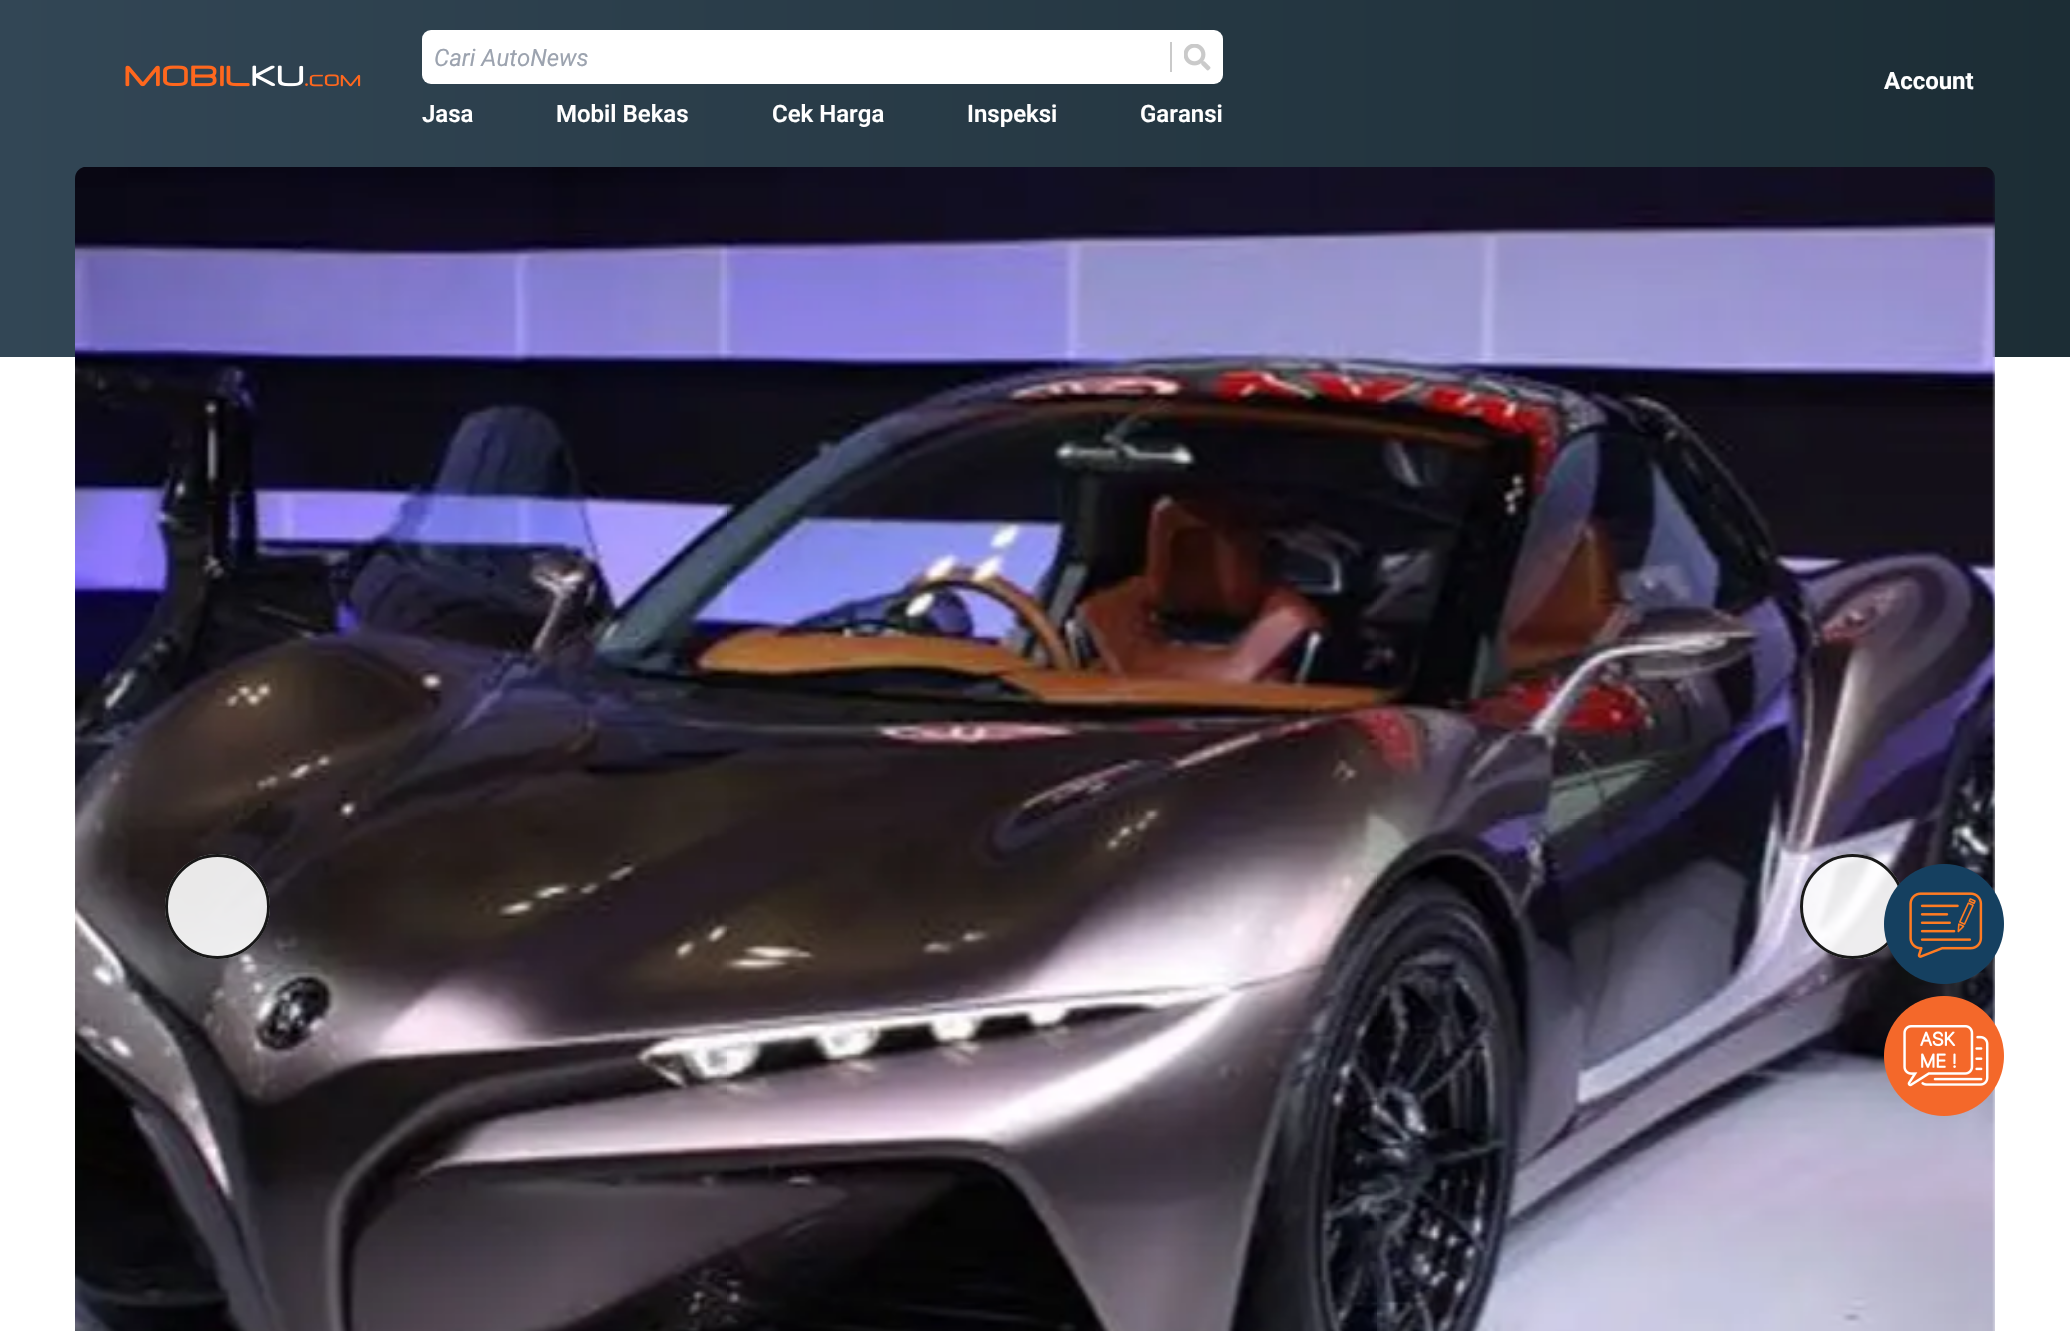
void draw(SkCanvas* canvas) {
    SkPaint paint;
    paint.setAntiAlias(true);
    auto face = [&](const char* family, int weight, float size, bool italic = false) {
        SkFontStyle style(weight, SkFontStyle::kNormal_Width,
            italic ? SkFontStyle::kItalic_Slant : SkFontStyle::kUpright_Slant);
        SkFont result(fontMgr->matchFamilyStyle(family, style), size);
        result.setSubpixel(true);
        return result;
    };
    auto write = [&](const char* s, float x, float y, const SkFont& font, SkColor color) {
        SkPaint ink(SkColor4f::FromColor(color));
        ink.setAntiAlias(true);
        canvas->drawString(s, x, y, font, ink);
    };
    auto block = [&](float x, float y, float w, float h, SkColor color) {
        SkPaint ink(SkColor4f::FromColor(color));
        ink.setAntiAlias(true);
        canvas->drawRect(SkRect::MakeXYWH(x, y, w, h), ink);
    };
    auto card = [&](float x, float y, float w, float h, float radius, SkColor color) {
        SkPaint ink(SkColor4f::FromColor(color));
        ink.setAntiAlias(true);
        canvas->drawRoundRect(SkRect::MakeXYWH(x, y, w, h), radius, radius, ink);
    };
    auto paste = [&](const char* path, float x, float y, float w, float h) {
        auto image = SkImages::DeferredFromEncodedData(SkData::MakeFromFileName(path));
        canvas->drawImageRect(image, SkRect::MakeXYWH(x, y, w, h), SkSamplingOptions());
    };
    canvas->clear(SK_ColorWHITE);
    {
        const SkColor colors[] = {SkColorSetRGB(50, 70, 85), SkColorSetRGB(28, 45, 53)};
        const float stops[] = {0, 1};
        const SkPoint ends[] = {{0, 72}, {2070, 72}};
        paint.setShader(SkGradientShader::MakeLinear(ends, colors, stops, 2, SkTileMode::kClamp));
        paint.setAlpha(255);
    }
    canvas->drawRect(SkRect::MakeXYWH(0, 0, 2070, 144), paint);
    paste("pic1.png", 125, 65, 236, 22);
    card(422, 30, 801, 54, 9, SK_ColorWHITE);
    block(1170, 42, 2, 30, SkColorSetRGB(202, 202, 202));
    auto kFont1 = face("Roboto", 400, 24, true);
    write("Cari AutoNews", 434, 66, kFont1, SkColorSetRGB(156, 163, 175));
    paste("pic2.png", 1184, 44, 27, 27);
    auto kFont2 = face("Roboto", 600, 24);
    write("Jasa", 422, 122, kFont2, SK_ColorWHITE);
    write("Mobil Bekas", 556, 122, kFont2, SK_ColorWHITE);
    write("Cek Harga", 772, 122, kFont2, SK_ColorWHITE);
    write("Inspeksi", 967, 122, kFont2, SK_ColorWHITE);
    write("Garansi", 1140, 122, kFont2, SK_ColorWHITE);
    auto kFont3 = face("Roboto", 700, 24);
    write("Account", 1884, 89, kFont3, SK_ColorWHITE);
    {
        const SkColor colors[] = {SkColorSetRGB(50, 70, 85), SkColorSetRGB(28, 45, 53)};
        const float stops[] = {0, 1};
        const SkPoint ends[] = {{0, 245}, {2070, 244}};
        paint.setShader(SkGradientShader::MakeLinear(ends, colors, stops, 2, SkTileMode::kClamp));
        paint.setAlpha(255);
    }
    canvas->drawRect(SkRect::MakeXYWH(0, 144, 2070, 213), paint);
    paste("pic3.png", 75, 167, 1920, 1164);
    paint.setShader(nullptr);
    paint.setColor(SkColorSetARGB(230, 255, 255, 255));
    canvas->drawCircle(217.5f, 906.5f, 52.5f, paint);
    paint.setStyle(SkPaint::kStroke_Style);
    paint.setStrokeWidth(3);
    paint.setColor(SkColorSetARGB(230, 0, 0, 0));
    canvas->drawCircle(217.5f, 906.5f, 51, paint);
    paint.setStyle(SkPaint::kFill_Style);
    paint.setColor(SkColorSetARGB(230, 255, 255, 255));
    canvas->drawCircle(1852.5f, 906.5f, 52.5f, paint);
    paint.setStyle(SkPaint::kStroke_Style);
    paint.setColor(SkColorSetARGB(230, 0, 0, 0));
    canvas->drawCircle(1852.5f, 906.5f, 51, paint);
    paste("pic4.png", 1884, 864, 120, 120);
    paste("pic5.png", 1884, 996, 120, 120);
}
